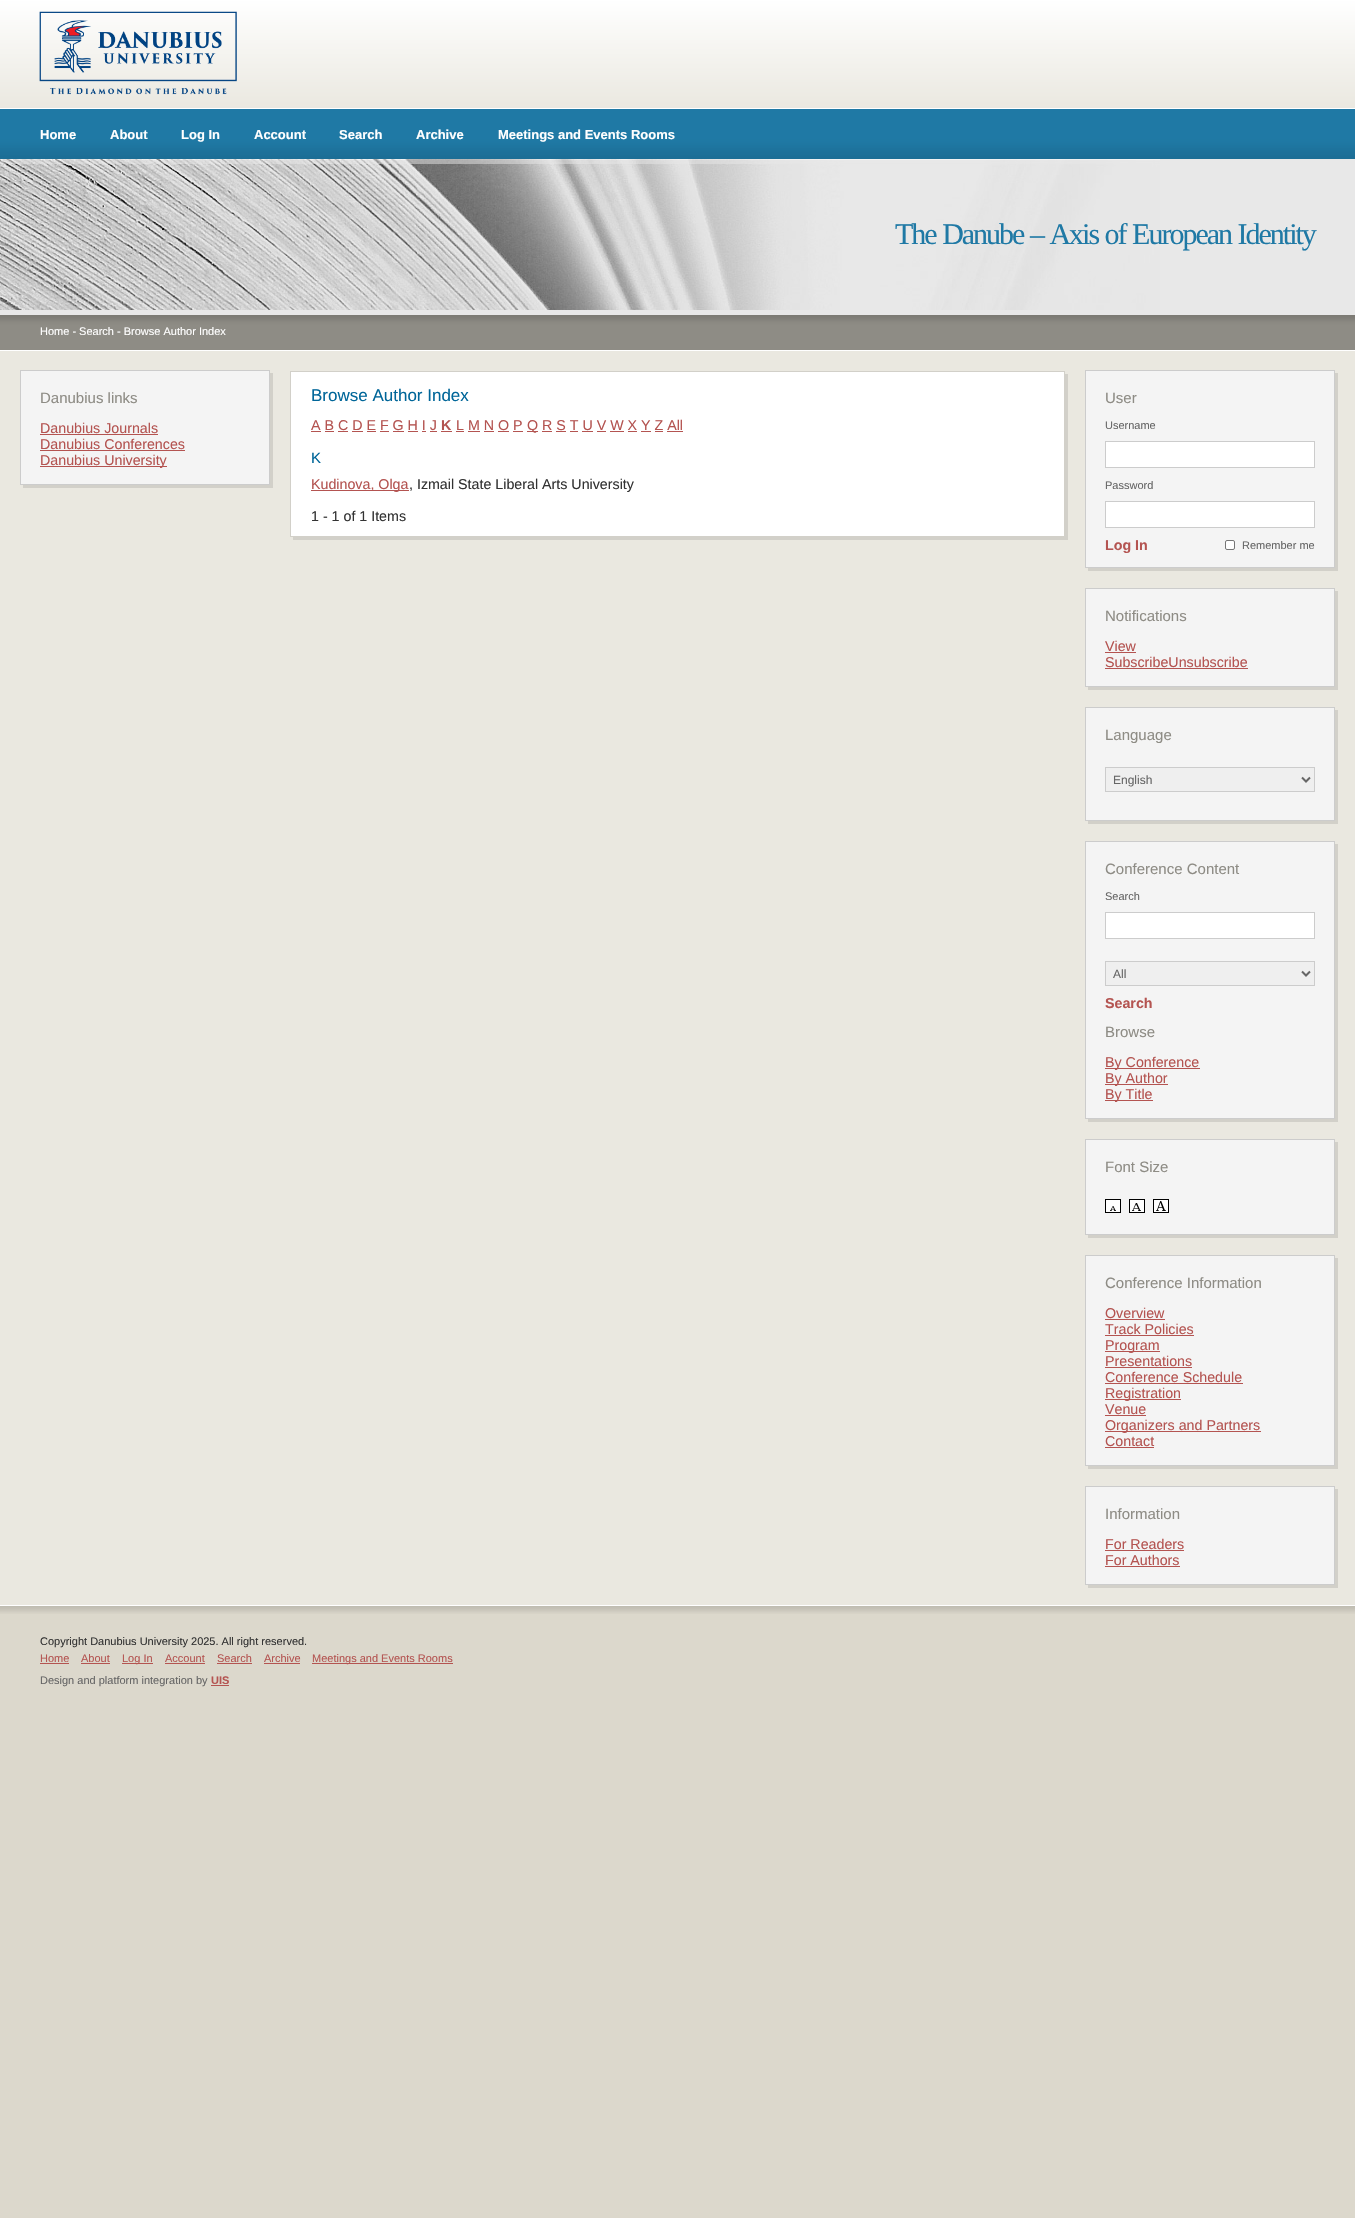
void draw(SkCanvas* canvas) {
    SkPaint paint;
    paint.setAntiAlias(true);
    auto face = [&](const char* family, int weight, float size, bool italic = false) {
        SkFontStyle style(weight, SkFontStyle::kNormal_Width,
            italic ? SkFontStyle::kItalic_Slant : SkFontStyle::kUpright_Slant);
        SkFont result(fontMgr->matchFamilyStyle(family, style), size);
        result.setSubpixel(true);
        return result;
    };
    auto write = [&](const char* s, float x, float y, const SkFont& font, SkColor color) {
        SkPaint ink(SkColor4f::FromColor(color));
        ink.setAntiAlias(true);
        canvas->drawString(s, x, y, font, ink);
    };
    auto writeSpaced = [&](const char* s, float x, float y, const SkFont& font, const SkPaint& ink, float letter, float word) {
        std::vector<SkGlyphID> glyphs(font.countText(s, strlen(s), SkTextEncoding::kUTF8));
        std::vector<float> xs(glyphs.size());
        font.textToGlyphs(s, strlen(s), SkTextEncoding::kUTF8, glyphs);
        font.getXPos(glyphs, xs, x);
        float extra = 0;
        for (size_t i = 0; i < glyphs.size(); i++) {
            xs[i] += extra;
            extra += letter + word * (glyphs[i] == font.unicharToGlyph(' '));
        }
        canvas->drawTextBlob(SkTextBlob::MakeFromPosHGlyphs(glyphs, xs, y, font), 0, 0, ink);
    };
    auto block = [&](float x, float y, float w, float h, SkColor color) {
        SkPaint ink(SkColor4f::FromColor(color));
        ink.setAntiAlias(true);
        canvas->drawRect(SkRect::MakeXYWH(x, y, w, h), ink);
    };
    auto paste = [&](const char* path, float x, float y, float w, float h) {
        auto image = SkImages::DeferredFromEncodedData(SkData::MakeFromFileName(path));
        canvas->drawImageRect(image, SkRect::MakeXYWH(x, y, w, h), SkSamplingOptions());
    };
    canvas->clear(SkColorSetRGB(220, 216, 204));
    paste("pic1.png", 0, 0, 1355, 109);
    paste("pic2.png", 39, 11, 198, 84);
    paste("pic3.png", 0, 109, 1355, 50);
    auto kFont1 = face("Liberation Sans", 700, 13);
    write("Home", 40, 139, kFont1, SK_ColorWHITE);
    write("About", 110, 139, kFont1, SK_ColorWHITE);
    write("Log In", 181, 139, kFont1, SK_ColorWHITE);
    write("Account", 254, 139, kFont1, SK_ColorWHITE);
    write("Search", 339, 139, kFont1, SK_ColorWHITE);
    write("Archive", 416, 139, kFont1, SK_ColorWHITE);
    write("Meetings and Events Rooms", 498, 139, kFont1, SK_ColorWHITE);
    block(1160, 159, 195, 151, SkColorSetRGB(232, 232, 232));
    paste("pic4.png", 0, 159, 1160, 151);
    block(0, 159, 1160, 5, SkColorSetARGB(128, 231, 231, 231));
    auto kFont2 = face("Liberation Serif", 400, 30);
    paint.setColor(SkColorSetRGB(31, 121, 165));
    writeSpaced("The Danube – Axis of European Identity", 895, 244, kFont2, paint, -2, 1);
    paste("pic5.png", 0, 310, 1355, 41);
    auto kFont3 = face("Liberation Sans", 400, 11);
    write("Home - Search - Browse Author Index", 40, 335, kFont3, SK_ColorWHITE);
    block(0, 351, 1355, 1254, SkColorSetRGB(234, 232, 224));
    paste("pic6.png", 20, 370, 253, 118);
    paste("pic7.png", 21, 370, 252, 3);
    auto kFont4 = face("Liberation Sans", 400, 15);
    write("Danubius links", 40, 403, kFont4, SkColorSetRGB(142, 140, 133));
    auto kFont5 = face("Liberation Sans", 400, 14.25f);
    write("Danubius Journals", 40, 433, kFont5, SkColorSetRGB(180, 84, 81));
    block(40, 434, 118, 1, SkColorSetRGB(180, 84, 81));
    write("Danubius Conferences", 40, 449, kFont5, SkColorSetRGB(180, 84, 81));
    block(40, 450, 145, 1, SkColorSetRGB(180, 84, 81));
    block(40, 466, 127, 1, SkColorSetRGB(180, 84, 81));
    write("Danubius University", 40, 465, kFont5, SkColorSetRGB(180, 84, 81));
    paste("pic8.png", 20, 484, 250, 4);
    block(290, 372, 775, 2, SK_ColorWHITE);
    block(290, 371, 775, 1, SkColorSetRGB(210, 208, 201));
    block(1064, 371, 1, 4, SkColorSetRGB(210, 208, 201));
    block(290, 371, 1, 4, SkColorSetRGB(210, 208, 201));
    block(291, 374, 773, 162, SK_ColorWHITE);
    block(1064, 374, 4, 163, SkColorSetRGB(210, 208, 201));
    block(290, 536, 778, 1, SkColorSetRGB(210, 208, 201));
    block(290, 374, 1, 163, SkColorSetRGB(210, 208, 201));
    auto kFont6 = face("Liberation Sans", 400, 17);
    write("Browse Author Index", 311, 401, kFont6, SkColorSetRGB(0, 102, 153));
    write("A B C D E F G H I J", 311, 430, kFont5, SkColorSetRGB(180, 84, 81));
    block(311, 431, 10, 1, SkColorSetRGB(180, 84, 81));
    auto kFont7 = face("Liberation Sans", 700, 14.25f);
    write("K", 441, 430, kFont7, SkColorSetRGB(180, 84, 81));
    block(441, 431, 11, 1, SkColorSetRGB(180, 84, 81));
    write("L M N O P", 456, 430, kFont5, SkColorSetRGB(180, 84, 81));
    block(456, 431, 8, 1, SkColorSetRGB(180, 84, 81));
    block(527, 431, 11, 1, SkColorSetRGB(180, 84, 81));
    write("Q R S T U V W X Y Z All", 527, 430, kFont5, SkColorSetRGB(180, 84, 81));
    block(325, 431, 9, 1, SkColorSetRGB(180, 84, 81));
    block(338, 431, 10, 1, SkColorSetRGB(180, 84, 81));
    block(352, 431, 11, 1, SkColorSetRGB(180, 84, 81));
    block(367, 431, 9, 1, SkColorSetRGB(180, 84, 81));
    block(380, 431, 9, 1, SkColorSetRGB(180, 84, 81));
    block(393, 431, 11, 1, SkColorSetRGB(180, 84, 81));
    block(408, 431, 10, 1, SkColorSetRGB(180, 84, 81));
    block(422, 431, 4, 1, SkColorSetRGB(180, 84, 81));
    block(430, 431, 7, 1, SkColorSetRGB(180, 84, 81));
    block(468, 431, 12, 1, SkColorSetRGB(180, 84, 81));
    block(484, 431, 10, 1, SkColorSetRGB(180, 84, 81));
    block(498, 431, 11, 1, SkColorSetRGB(180, 84, 81));
    block(513, 431, 10, 1, SkColorSetRGB(180, 84, 81));
    block(542, 431, 10, 1, SkColorSetRGB(180, 84, 81));
    block(556, 431, 10, 1, SkColorSetRGB(180, 84, 81));
    block(570, 431, 8, 1, SkColorSetRGB(180, 84, 81));
    block(582, 431, 11, 1, SkColorSetRGB(180, 84, 81));
    block(597, 431, 9, 1, SkColorSetRGB(180, 84, 81));
    block(610, 431, 14, 1, SkColorSetRGB(180, 84, 81));
    block(628, 431, 9, 1, SkColorSetRGB(180, 84, 81));
    block(641, 431, 10, 1, SkColorSetRGB(180, 84, 81));
    block(655, 431, 8, 1, SkColorSetRGB(180, 84, 81));
    block(667, 431, 16, 1, SkColorSetRGB(180, 84, 81));
    write("K", 311, 463, kFont4, SkColorSetRGB(0, 102, 153));
    block(311, 490, 98, 1, SkColorSetRGB(180, 84, 81));
    write("Kudinova, Olga", 311, 489, kFont5, SkColorSetRGB(180, 84, 81));
    write(", Izmail State Liberal Arts University", 409, 489, kFont5, SkColorSetRGB(51, 51, 51));
    write("1 - 1 of 1 Items", 311, 521, kFont5, SkColorSetRGB(51, 51, 51));
    block(293, 537, 775, 3, SkColorSetRGB(210, 208, 201));
    paste("pic9.png", 1085, 370, 253, 201);
    paste("pic7.png", 1086, 370, 252, 3);
    write("User", 1105, 403, kFont4, SkColorSetRGB(142, 140, 133));
    write("Username", 1105, 429, kFont3, SkColorSetRGB(102, 102, 102));
    paint.setColor(SK_ColorWHITE);
    canvas->drawRect(SkRect::MakeXYWH(1105.5f, 441.5f, 209, 26), paint);
    paint.setStyle(SkPaint::kStroke_Style);
    paint.setStrokeWidth(1);
    paint.setColor(SkColorSetRGB(204, 204, 204));
    canvas->drawRect(SkRect::MakeXYWH(1105.5f, 441.5f, 209, 26), paint);
    write("Password", 1105, 489, kFont3, SkColorSetRGB(102, 102, 102));
    paint.setStyle(SkPaint::kFill_Style);
    paint.setColor(SK_ColorWHITE);
    canvas->drawRect(SkRect::MakeXYWH(1105.5f, 501.5f, 209, 26), paint);
    paint.setStyle(SkPaint::kStroke_Style);
    paint.setColor(SkColorSetRGB(204, 204, 204));
    canvas->drawRect(SkRect::MakeXYWH(1105.5f, 501.5f, 209, 26), paint);
    write("Log In", 1105, 550, kFont7, SkColorSetRGB(180, 84, 81));
    paint.setStyle(SkPaint::kFill_Style);
    paint.setColor(SK_ColorWHITE);
    canvas->drawRoundRect(SkRect::MakeXYWH(1225.5f, 540.5f, 9, 9), 1.5f, 1.5f, paint);
    paint.setStyle(SkPaint::kStroke_Style);
    paint.setColor(SkColorSetRGB(118, 118, 118));
    canvas->drawRoundRect(SkRect::MakeXYWH(1225.5f, 540.5f, 9, 9), 1.5f, 1.5f, paint);
    write("Remember me", 1242, 549, kFont3, SkColorSetRGB(102, 102, 102));
    paste("pic8.png", 1085, 567, 250, 4);
    paste("pic10.png", 1085, 588, 253, 102);
    paste("pic7.png", 1086, 588, 252, 3);
    write("Notifications", 1105, 621, kFont4, SkColorSetRGB(142, 140, 133));
    write("View", 1105, 651, kFont5, SkColorSetRGB(180, 84, 81));
    block(1105, 652, 31, 1, SkColorSetRGB(180, 84, 81));
    write("SubscribeUnsubscribe", 1105, 667, kFont5, SkColorSetRGB(180, 84, 81));
    block(1105, 668, 143, 1, SkColorSetRGB(180, 84, 81));
    paste("pic8.png", 1085, 686, 250, 4);
    paste("pic11.png", 1085, 707, 253, 117);
    paste("pic7.png", 1086, 707, 252, 3);
    write("Language", 1105, 740, kFont4, SkColorSetRGB(142, 140, 133));
    paint.setStyle(SkPaint::kFill_Style);
    paint.setColor(SkColorSetRGB(239, 239, 239));
    canvas->drawRect(SkRect::MakeXYWH(1105.5f, 767.5f, 209, 24), paint);
    paint.setStyle(SkPaint::kStroke_Style);
    paint.setColor(SkColorSetRGB(204, 204, 204));
    canvas->drawRect(SkRect::MakeXYWH(1105.5f, 767.5f, 209, 24), paint);
    paint.setStrokeWidth(2);
    paint.setColor(SkColorSetRGB(102, 102, 102));
    canvas->drawPath(SkPathBuilder().moveTo(1302, 777.5f).lineTo(1306, 781.5f).lineTo(1310, 777.5f).detach(), paint);
    auto kFont8 = face("Liberation Sans", 400, 12);
    write("English", 1113, 784, kFont8, SkColorSetRGB(102, 102, 102));
    paste("pic8.png", 1085, 820, 250, 4);
    paste("pic12.png", 1085, 841, 253, 281);
    paste("pic7.png", 1086, 841, 252, 3);
    write("Conference Content", 1105, 874, kFont4, SkColorSetRGB(142, 140, 133));
    write("Search", 1105, 900, kFont3, SkColorSetRGB(102, 102, 102));
    paint.setStyle(SkPaint::kFill_Style);
    paint.setColor(SK_ColorWHITE);
    canvas->drawRect(SkRect::MakeXYWH(1105.5f, 912.5f, 209, 26), paint);
    paint.setStyle(SkPaint::kStroke_Style);
    paint.setStrokeWidth(1);
    paint.setColor(SkColorSetRGB(204, 204, 204));
    canvas->drawRect(SkRect::MakeXYWH(1105.5f, 912.5f, 209, 26), paint);
    paint.setStyle(SkPaint::kFill_Style);
    paint.setColor(SkColorSetRGB(239, 239, 239));
    canvas->drawRect(SkRect::MakeXYWH(1105.5f, 961.5f, 209, 24), paint);
    paint.setStyle(SkPaint::kStroke_Style);
    paint.setColor(SkColorSetRGB(204, 204, 204));
    canvas->drawRect(SkRect::MakeXYWH(1105.5f, 961.5f, 209, 24), paint);
    paint.setStrokeWidth(2);
    paint.setColor(SkColorSetRGB(102, 102, 102));
    canvas->drawPath(SkPathBuilder().moveTo(1302, 971.5f).lineTo(1306, 975.5f).lineTo(1310, 971.5f).detach(), paint);
    write("All", 1113, 978, kFont8, SkColorSetRGB(102, 102, 102));
    write("Search", 1105, 1008, kFont7, SkColorSetRGB(180, 84, 81));
    write("Browse", 1105, 1037, kFont4, SkColorSetRGB(142, 140, 133));
    block(1105, 1068, 95, 1, SkColorSetRGB(180, 84, 81));
    write("By Conference", 1105, 1067, kFont5, SkColorSetRGB(180, 84, 81));
    block(1105, 1084, 63, 1, SkColorSetRGB(180, 84, 81));
    write("By Author", 1105, 1083, kFont5, SkColorSetRGB(180, 84, 81));
    block(1105, 1100, 48, 1, SkColorSetRGB(180, 84, 81));
    write("By Title", 1105, 1099, kFont5, SkColorSetRGB(180, 84, 81));
    paste("pic8.png", 1085, 1118, 250, 4);
    paste("pic13.png", 1085, 1139, 253, 99);
    paste("pic7.png", 1086, 1139, 252, 3);
    write("Font Size", 1105, 1172, kFont4, SkColorSetRGB(142, 140, 133));
    paste("pic14.png", 1105, 1199, 16, 14);
    paste("pic15.png", 1129, 1199, 16, 14);
    paste("pic16.png", 1153, 1199, 16, 14);
    paste("pic8.png", 1085, 1234, 250, 4);
    paste("pic17.png", 1085, 1255, 253, 214);
    paste("pic7.png", 1086, 1255, 252, 3);
    write("Conference Information", 1105, 1288, kFont4, SkColorSetRGB(142, 140, 133));
    write("Overview", 1105, 1318, kFont5, SkColorSetRGB(180, 84, 81));
    block(1105, 1319, 60, 1, SkColorSetRGB(180, 84, 81));
    write("Track Policies", 1105, 1334, kFont5, SkColorSetRGB(180, 84, 81));
    block(1105, 1335, 89, 1, SkColorSetRGB(180, 84, 81));
    block(1105, 1351, 55, 1, SkColorSetRGB(180, 84, 81));
    write("Program", 1105, 1350, kFont5, SkColorSetRGB(180, 84, 81));
    write("Presentations", 1105, 1366, kFont5, SkColorSetRGB(180, 84, 81));
    block(1105, 1367, 87, 1, SkColorSetRGB(180, 84, 81));
    write("Conference Schedule", 1105, 1382, kFont5, SkColorSetRGB(180, 84, 81));
    block(1105, 1383, 138, 1, SkColorSetRGB(180, 84, 81));
    block(1105, 1399, 76, 1, SkColorSetRGB(180, 84, 81));
    write("Registration", 1105, 1398, kFont5, SkColorSetRGB(180, 84, 81));
    write("Venue", 1105, 1414, kFont5, SkColorSetRGB(180, 84, 81));
    block(1105, 1415, 41, 1, SkColorSetRGB(180, 84, 81));
    block(1105, 1431, 156, 1, SkColorSetRGB(180, 84, 81));
    write("Organizers and Partners", 1105, 1430, kFont5, SkColorSetRGB(180, 84, 81));
    write("Contact", 1105, 1446, kFont5, SkColorSetRGB(180, 84, 81));
    block(1105, 1447, 49, 1, SkColorSetRGB(180, 84, 81));
    paste("pic8.png", 1085, 1465, 250, 4);
    paste("pic10.png", 1085, 1486, 253, 102);
    paste("pic7.png", 1086, 1486, 252, 3);
    write("Information", 1105, 1519, kFont4, SkColorSetRGB(142, 140, 133));
    write("For Readers", 1105, 1549, kFont5, SkColorSetRGB(180, 84, 81));
    block(1105, 1550, 79, 1, SkColorSetRGB(180, 84, 81));
    write("For Authors", 1105, 1565, kFont5, SkColorSetRGB(180, 84, 81));
    block(1105, 1566, 75, 1, SkColorSetRGB(180, 84, 81));
    paste("pic8.png", 1085, 1584, 250, 4);
    paste("pic18.png", 0, 1605, 1355, 9);
    write("Copyright Danubius University 2025. All right reserved.", 40, 1645, kFont3, SkColorSetRGB(51, 51, 51));
    write("Home", 40, 1662, kFont3, SkColorSetRGB(180, 84, 81));
    block(40, 1663, 29, 1, SkColorSetRGB(180, 84, 81));
    write("About", 81, 1662, kFont3, SkColorSetRGB(180, 84, 81));
    block(81, 1663, 29, 1, SkColorSetRGB(180, 84, 81));
    block(122, 1663, 31, 1, SkColorSetRGB(180, 84, 81));
    write("Log In", 122, 1662, kFont3, SkColorSetRGB(180, 84, 81));
    write("Account", 165, 1662, kFont3, SkColorSetRGB(180, 84, 81));
    block(165, 1663, 40, 1, SkColorSetRGB(180, 84, 81));
    write("Search", 217, 1662, kFont3, SkColorSetRGB(180, 84, 81));
    block(217, 1663, 35, 1, SkColorSetRGB(180, 84, 81));
    write("Archive", 264, 1662, kFont3, SkColorSetRGB(180, 84, 81));
    block(264, 1663, 36, 1, SkColorSetRGB(180, 84, 81));
    block(312, 1663, 141, 1, SkColorSetRGB(180, 84, 81));
    write("Meetings and Events Rooms", 312, 1662, kFont3, SkColorSetRGB(180, 84, 81));
    write("Design and platform integration by", 40, 1684, kFont3, SkColorSetRGB(102, 102, 102));
    auto kFont9 = face("Liberation Sans", 700, 11);
    write("UIS", 211, 1684, kFont9, SkColorSetRGB(180, 84, 81));
    block(211, 1685, 18, 1, SkColorSetRGB(180, 84, 81));
}
